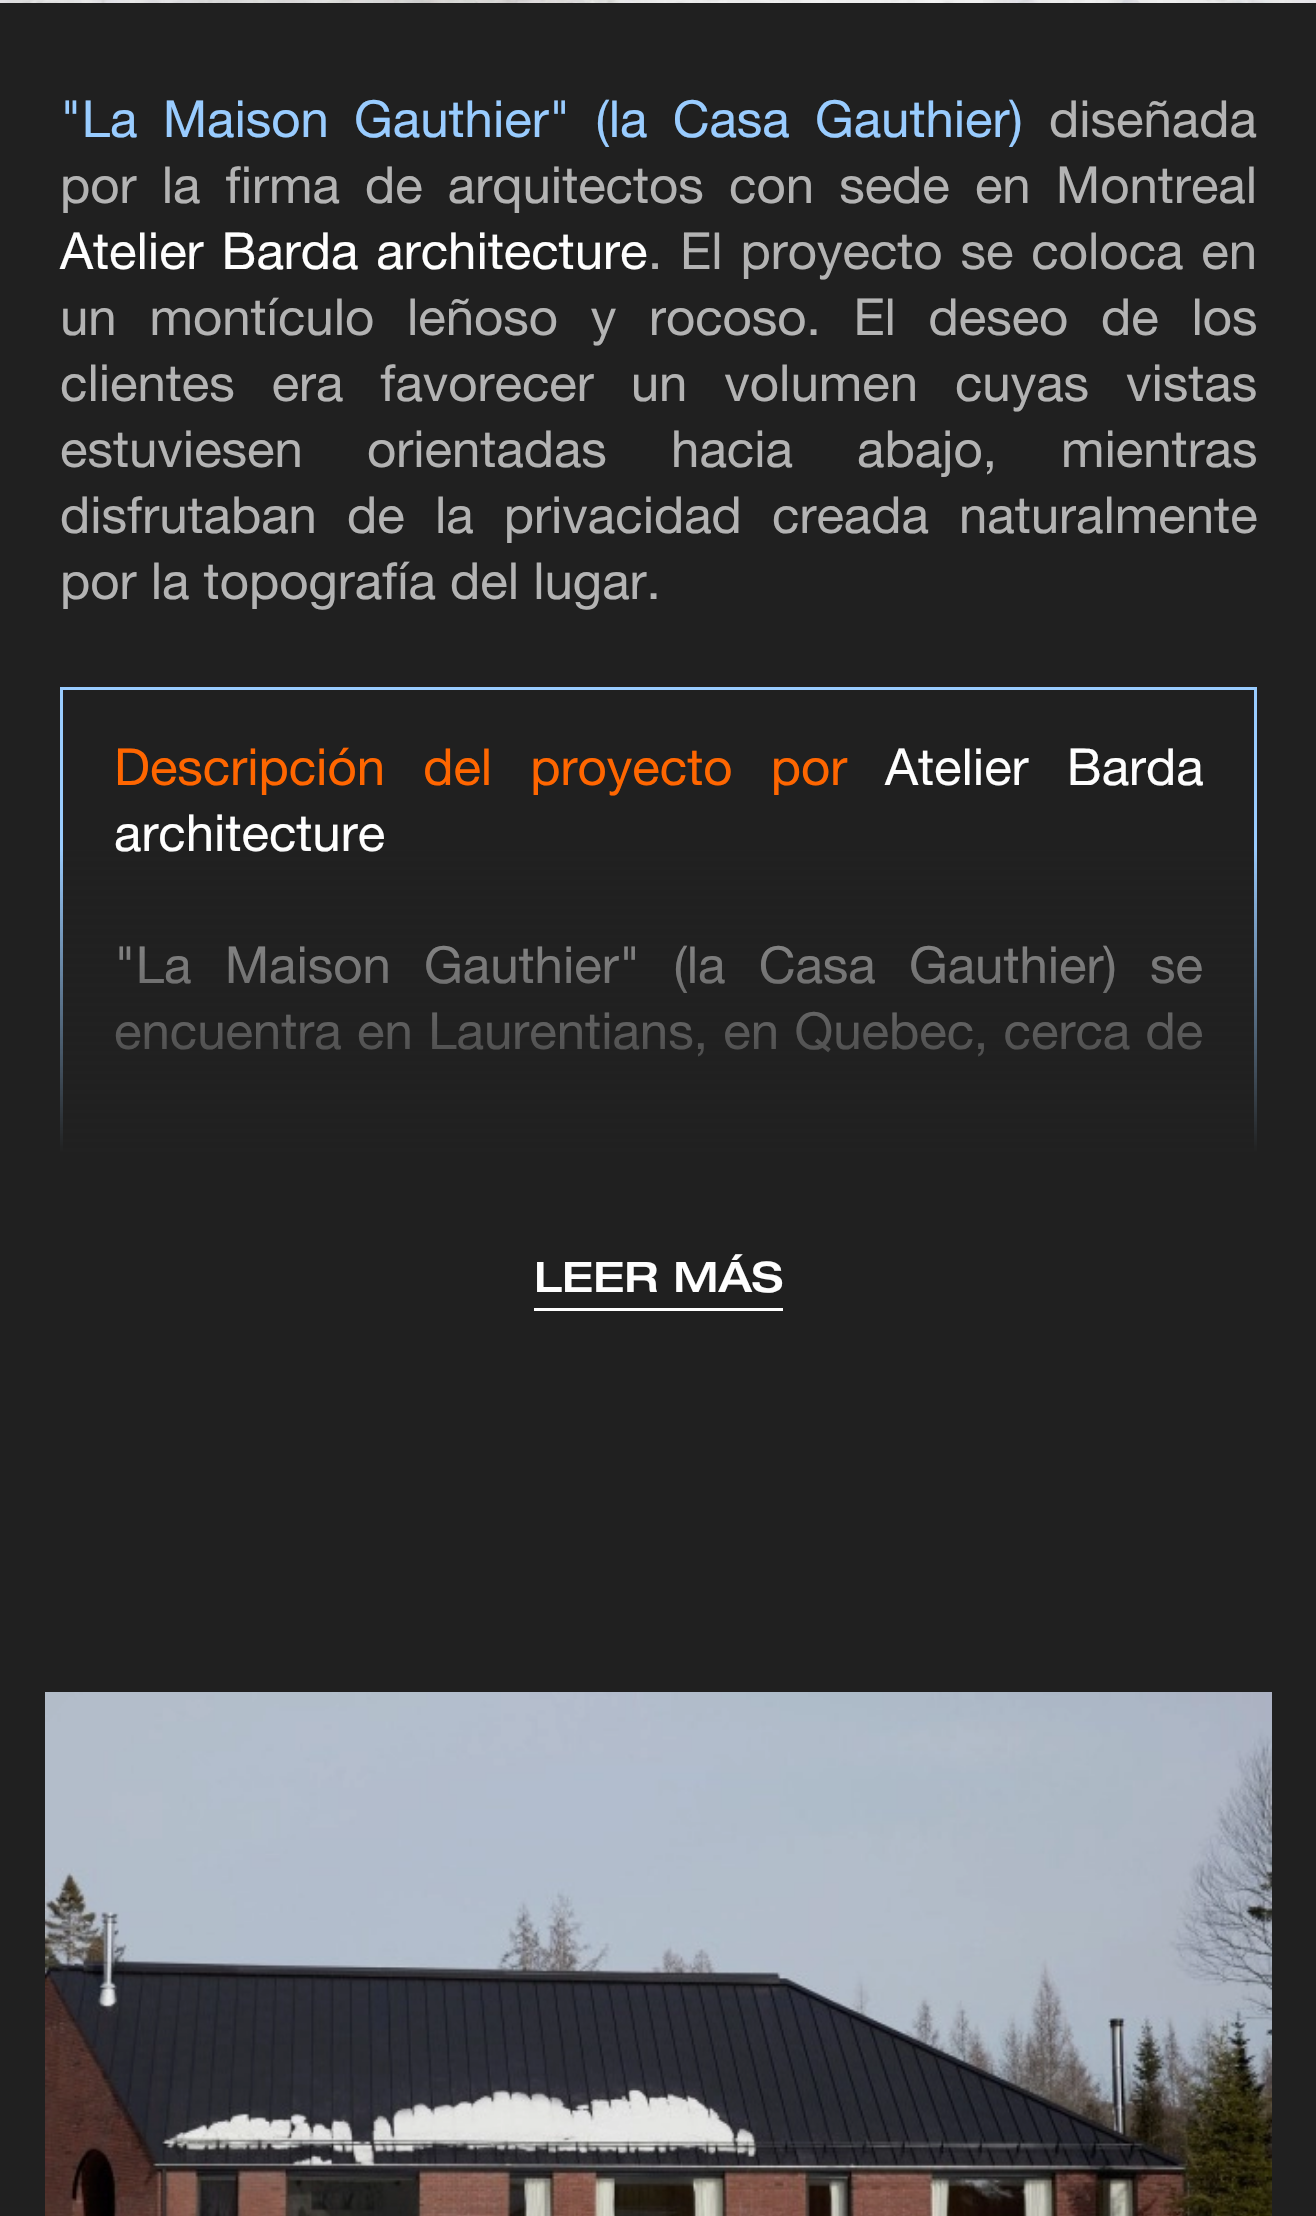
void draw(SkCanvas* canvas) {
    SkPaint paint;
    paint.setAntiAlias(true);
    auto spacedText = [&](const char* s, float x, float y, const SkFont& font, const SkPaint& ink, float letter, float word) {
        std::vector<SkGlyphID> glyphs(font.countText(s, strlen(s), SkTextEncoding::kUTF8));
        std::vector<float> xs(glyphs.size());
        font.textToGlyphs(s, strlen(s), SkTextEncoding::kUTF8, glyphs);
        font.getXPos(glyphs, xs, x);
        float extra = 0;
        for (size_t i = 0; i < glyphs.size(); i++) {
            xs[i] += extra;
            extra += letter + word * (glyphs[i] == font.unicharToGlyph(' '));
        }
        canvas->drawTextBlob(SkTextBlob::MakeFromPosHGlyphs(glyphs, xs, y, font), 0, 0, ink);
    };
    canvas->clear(0xFF202020);
    canvas->drawImageRect(SkImages::DeferredFromEncodedData(SkData::MakeFromFileName("img1.png")), SkRect::MakeXYWH(0, 0, 1316, 3), SkSamplingOptions());
    SkFont font1(fontMgr->matchFamilyStyle("Helvetica Neue", SkFontStyle::Normal()), 51);
    font1.setSubpixel(true);
    paint.setColor(0xFF99CCFF);
    spacedText("\"La Maison Gauthier\" (la Casa Gauthier)", 60, 137, font1, paint, 0, 11);
    paint.setColor(0xFFB3B3B3);
    canvas->drawString("diseñada", 1049, 137, font1, paint);
    spacedText("por la firma de arquitectos con sede en Montreal", 60, 203, font1, paint, 0, 11);
    paint.setColor(0xFFFEFEFE);
    spacedText("Atelier Barda architecture", 60, 269, font1, paint, 0, 3.75f);
    paint.setColor(0xFFB3B3B3);
    spacedText(". El proyecto se coloca en", 648, 269, font1, paint, 0, 3.75f);
    spacedText("un montículo leñoso y rocoso. El deseo de los", 60, 335, font1, paint, 0, 18.5f);
    spacedText("clientes era favorecer un volumen cuyas vistas", 60, 401, font1, paint, 0, 22.75f);
    spacedText("estuviesen orientadas hacia abajo, mientras", 60, 467, font1, paint, 0, 50);
    spacedText("disfrutaban de la privacidad creada naturalmente", 60, 533, font1, paint, 0, 16);
    canvas->drawString("por la topografía del lugar.", 60, 599, font1, paint);
    canvas->save();
    canvas->clipRect(SkRect::MakeXYWH(60, 93, 1197, 1260));
    paint.setStyle(SkPaint::kStroke_Style);
    paint.setStrokeWidth(3);
    paint.setColor(0xFF99CCFF);
    canvas->drawRect(SkRect::MakeXYWH(61.5f, 688.5f, 1194, 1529), paint);
    canvas->restore();
    paint.setStyle(SkPaint::kFill_Style);
    paint.setColor(0xFFFF6600);
    spacedText("Descripción del proyecto por", 114, 785, font1, paint, 0, 24);
    paint.setColor(0xFFFEFEFE);
    spacedText("Atelier Barda", 885, 785, font1, paint, 0, 24);
    canvas->drawString("architecture", 114, 851, font1, paint);
    paint.setColor(0xFFB3B3B3);
    spacedText("\"La Maison Gauthier\" (la Casa Gauthier) se", 114, 983, font1, paint, 0, 19);
    spacedText("encuentra en Laurentians, en Quebec, cerca de", 114, 1049, font1, paint, 0, 1.25f);
    {
        const SkColor colors[] = {0x00202020, 0xFF202020};
        const float stops[] = {0, 0.58f};
        const SkPoint ends[] = {{659, 843}, {659, 1377}};
        paint.setShader(SkGradientShader::MakeLinear(ends, colors, stops, 2, SkTileMode::kClamp));
        paint.setAlpha(255);
    }
    canvas->drawRect(SkRect::MakeXYWH(60, 850, 1197, 503), paint);
    paint.setShader(nullptr);
    paint.setColor(0xFFFFFFFF);
    canvas->drawRect(SkRect::MakeXYWH(534, 1308, 249, 3), paint);
    SkFont font2(fontMgr->matchFamilyStyle("Helvetica Neue", SkFontStyle(500, SkFontStyle::kNormal_Width, SkFontStyle::kUpright_Slant)), 42);
    font2.setSubpixel(true);
    paint.setColor(0xFFFEFEFE);
    canvas->drawString("LEER MÁS", 534, 1292, font2, paint);
    canvas->drawImageRect(SkImages::DeferredFromEncodedData(SkData::MakeFromFileName("img2.png")), SkRect::MakeXYWH(45, 1692, 1227, 524), SkSamplingOptions());
}
